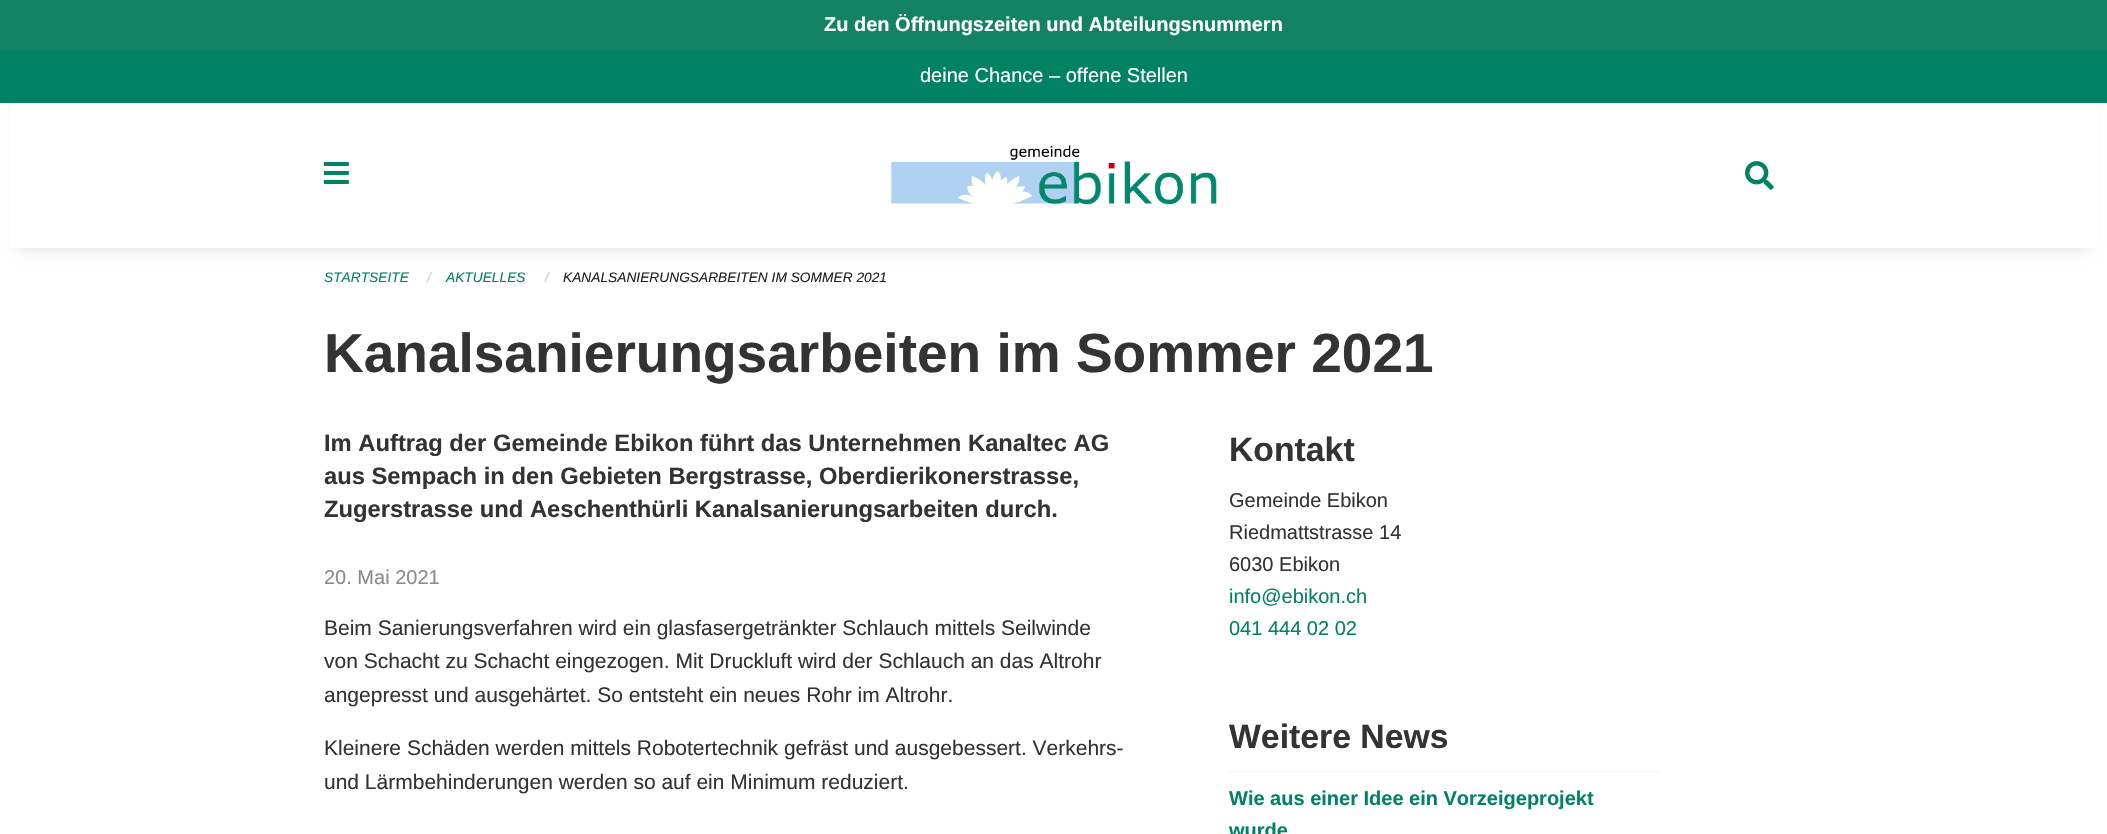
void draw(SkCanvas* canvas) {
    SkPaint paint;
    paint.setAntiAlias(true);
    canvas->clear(0xFFFFFFFF);
    paint.setColor(0xFF128263);
    canvas->drawRect(SkRect::MakeXYWH(0, 0, 2107, 50), paint);
    SkFont font1(fontMgr->matchFamilyStyle("Liberation Sans", SkFontStyle::Bold()), 20);
    font1.setSubpixel(true);
    paint.setColor(0xFFFFFFFF);
    canvas->drawString("Zu den Öffnungszeiten und Abteilungsnummern", 824, 31, font1, paint);
    paint.setColor(0x26000000);
    paint.setMaskFilter(SkMaskFilter::MakeBlur(kNormal_SkBlurStyle, 6));
    canvas->drawRect(SkRect::MakeXYWH(19, 88, 2070, 160), paint);
    paint.setMaskFilter(nullptr);
    paint.setColor(0xFFFFFFFF);
    canvas->drawRect(SkRect::MakeXYWH(10, 103, 2088, 145), paint);
    paint.setColor(0xFF008263);
    canvas->drawRect(SkRect::MakeXYWH(0, 50, 2107, 53), paint);
    SkFont font2(fontMgr->matchFamilyStyle("Liberation Sans", SkFontStyle::Normal()), 20);
    font2.setSubpixel(true);
    paint.setColor(0xFFFFFFFF);
    canvas->drawString("deine Chance – offene Stellen", 920, 82, font2, paint);
    canvas->drawImageRect(SkImages::DeferredFromEncodedData(SkData::MakeFromFileName("img1.png")), SkRect::MakeXYWH(323, 161, 26, 23), SkSamplingOptions());
    canvas->drawImageRect(SkImages::DeferredFromEncodedData(SkData::MakeFromFileName("img2.png")), SkRect::MakeXYWH(891, 145, 326, 60), SkSamplingOptions());
    canvas->drawImageRect(SkImages::DeferredFromEncodedData(SkData::MakeFromFileName("img3.png")), SkRect::MakeXYWH(1745, 161, 29, 29), SkSamplingOptions());
    SkFont font3(fontMgr->matchFamilyStyle("Liberation Sans", SkFontStyle::Italic()), 13.75f);
    font3.setSubpixel(true);
    paint.setColor(0xFF008263);
    canvas->drawString("STARTSEITE", 324, 282, font3, paint);
    paint.setColor(0xFFCACACA);
    canvas->drawString("/", 427, 282, font3, paint);
    paint.setColor(0xFF008263);
    canvas->drawString("AKTUELLES", 446, 282, font3, paint);
    paint.setColor(0xFFCACACA);
    canvas->drawString("/", 545, 282, font3, paint);
    paint.setColor(0xFF222222);
    canvas->drawString("KANALSANIERUNGSARBEITEN IM SOMMER 2021", 563, 282, font3, paint);
    SkFont font4(fontMgr->matchFamilyStyle("Liberation Sans", SkFontStyle::Bold()), 55);
    font4.setSubpixel(true);
    paint.setColor(0xFF333333);
    canvas->drawString("Kanalsanierungsarbeiten im Sommer 2021", 324, 372, font4, paint);
    SkFont font5(fontMgr->matchFamilyStyle("Liberation Sans", SkFontStyle::Bold()), 23.75f);
    font5.setSubpixel(true);
    canvas->drawString("Im Auftrag der Gemeinde Ebikon führt das Unternehmen Kanaltec AG", 324, 451, font5, paint);
    canvas->drawString("aus Sempach in den Gebieten Bergstrasse, Oberdierikonerstrasse,", 324, 484, font5, paint);
    canvas->drawString("Zugerstrasse und Aeschenthürli Kanalsanierungsarbeiten durch.", 324, 517, font5, paint);
    paint.setColor(0xFF8A8A8A);
    canvas->drawString("20. Mai 2021", 324, 584, font2, paint);
    SkFont font6(fontMgr->matchFamilyStyle("Liberation Sans", SkFontStyle::Normal()), 21);
    font6.setSubpixel(true);
    paint.setColor(0xFF333333);
    canvas->drawString("Beim Sanierungsverfahren wird ein glasfasergetränkter Schlauch mittels Seilwinde", 324, 635, font6, paint);
    canvas->drawString("von Schacht zu Schacht eingezogen. Mit Druckluft wird der Schlauch an das Altrohr", 324, 668, font6, paint);
    canvas->drawString("angepresst und ausgehärtet. So entsteht ein neues Rohr im Altrohr.", 324, 702, font6, paint);
    canvas->drawString("Kleinere Schäden werden mittels Robotertechnik gefräst und ausgebessert. Verkehrs-", 324, 755, font6, paint);
    canvas->drawString("und Lärmbehinderungen werden so auf ein Minimum reduziert.", 324, 789, font6, paint);
    SkFont font7(fontMgr->matchFamilyStyle("Liberation Sans", SkFontStyle::Bold()), 33.75f);
    font7.setSubpixel(true);
    canvas->drawString("Kontakt", 1229, 461, font7, paint);
    canvas->drawString("Gemeinde Ebikon", 1229, 507, font2, paint);
    canvas->drawString("Riedmattstrasse 14", 1229, 539, font2, paint);
    canvas->drawString("6030 Ebikon", 1229, 571, font2, paint);
    paint.setColor(0xFF008263);
    canvas->drawString("info@ebikon.ch", 1229, 603, font2, paint);
    canvas->drawString("041 444 02 02", 1229, 635, font2, paint);
    paint.setColor(0xFF333333);
    canvas->drawString("Weitere News", 1229, 748, font7, paint);
    paint.setColor(0xFFF5F5F5);
    canvas->drawRect(SkRect::MakeXYWH(1229, 771, 430, 1), paint);
    paint.setColor(0xFF008263);
    canvas->drawString("Wie aus einer Idee ein Vorzeigeprojekt", 1229, 805, font1, paint);
    canvas->drawString("wurde", 1229, 837, font1, paint);
}
